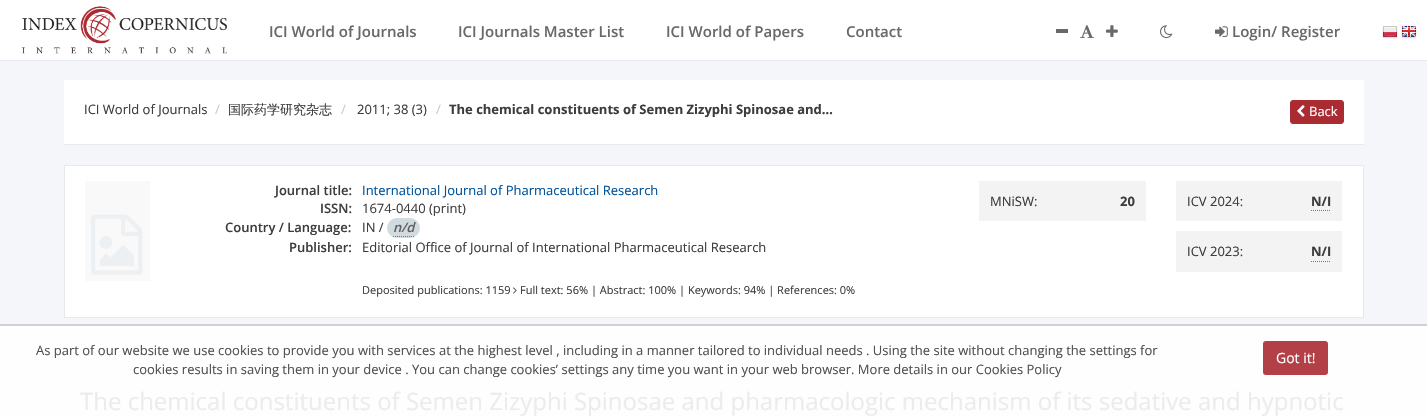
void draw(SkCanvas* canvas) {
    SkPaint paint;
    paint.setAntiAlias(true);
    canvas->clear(0xFFF4F6FA);
    paint.setColor(0xFFFFFFFF);
    canvas->drawRect(SkRect::MakeXYWH(0, 0, 1427, 60), paint);
    paint.setColor(0xFFE7EAEC);
    canvas->drawRect(SkRect::MakeXYWH(0, 60, 1427, 1), paint);
    canvas->drawImageRect(SkImages::DeferredFromEncodedData(SkData::MakeFromFileName("img1.png")), SkRect::MakeXYWH(22, 6, 205, 48), SkSamplingOptions());
    SkFont font1(fontMgr->matchFamilyStyle("Open Sans", SkFontStyle(600, SkFontStyle::kNormal_Width, SkFontStyle::kUpright_Slant)), 15);
    font1.setSubpixel(true);
    paint.setColor(0xFF676A6C);
    canvas->drawString("ICI World of Journals", 269, 37, font1, paint);
    canvas->drawString("ICI Journals Master List", 458, 37, font1, paint);
    canvas->drawString("ICI World of Papers", 666, 37, font1, paint);
    canvas->drawString("Contact", 846, 37, font1, paint);
    canvas->drawRect(SkRect::MakeXYWH(1056, 29, 12, 4), paint);
    canvas->drawImageRect(SkImages::DeferredFromEncodedData(SkData::MakeFromFileName("img2.png")), SkRect::MakeXYWH(1080, 25, 14, 14), SkSamplingOptions());
    canvas->drawImageRect(SkImages::DeferredFromEncodedData(SkData::MakeFromFileName("img3.png")), SkRect::MakeXYWH(1106, 25, 12, 12), SkSamplingOptions());
    canvas->drawImageRect(SkImages::DeferredFromEncodedData(SkData::MakeFromFileName("img4.png")), SkRect::MakeXYWH(1160, 25, 13, 14), SkSamplingOptions());
    canvas->drawImageRect(SkImages::DeferredFromEncodedData(SkData::MakeFromFileName("img5.png")), SkRect::MakeXYWH(1215, 26, 13, 11), SkSamplingOptions());
    canvas->drawString("Login/ Register", 1232, 37, font1, paint);
    canvas->drawImageRect(SkImages::DeferredFromEncodedData(SkData::MakeFromFileName("img6.png")), SkRect::MakeXYWH(1382, 26, 16, 13), SkSamplingOptions());
    canvas->drawImageRect(SkImages::DeferredFromEncodedData(SkData::MakeFromFileName("img7.png")), SkRect::MakeXYWH(1401, 26, 16, 13), SkSamplingOptions());
    paint.setColor(0xFFFEFEFF);
    canvas->drawRect(SkRect::MakeXYWH(0, 326, 1427, 90), paint);
    paint.setColor(0xFFFFFFFF);
    canvas->drawRect(SkRect::MakeXYWH(64, 80, 1300, 64), paint);
    paint.setColor(0xFFE7EAEC);
    canvas->drawRect(SkRect::MakeXYWH(64, 144, 1300, 1), paint);
    SkFont font2(fontMgr->matchFamilyStyle("Open Sans", SkFontStyle::Normal()), 13);
    font2.setSubpixel(true);
    paint.setColor(0xFF3D3D3D);
    canvas->drawString("ICI World of Journals", 84, 114, font2, paint);
    paint.setColor(0xFFCCCCCC);
    canvas->drawString("/", 215, 114, font2, paint);
    SkFont font3(fontMgr->matchFamilyStyle("WenQuanYi Zen Hei", SkFontStyle(500, SkFontStyle::kNormal_Width, SkFontStyle::kUpright_Slant)), 13);
    font3.setSubpixel(true);
    paint.setColor(0xFF3D3D3D);
    canvas->drawString("国际药学研究杂志", 228, 114, font3, paint);
    paint.setColor(0xFFCCCCCC);
    canvas->drawString("/", 341, 114, font2, paint);
    paint.setColor(0xFF3D3D3D);
    canvas->drawString("2011; 38 (3)", 357, 114, font2, paint);
    paint.setColor(0xFFCCCCCC);
    canvas->drawString("/", 436, 114, font2, paint);
    SkFont font4(fontMgr->matchFamilyStyle("Open Sans", SkFontStyle::Bold()), 13);
    font4.setSubpixel(true);
    paint.setColor(0xFF3D3D3D);
    canvas->drawString("The chemical constituents of Semen Zizyphi Spinosae and…", 449, 114, font4, paint);
    paint.setColor(0xFFAA2B31);
    canvas->drawRoundRect(SkRect::MakeXYWH(1290.5f, 100.5f, 53, 23), 2.5f, 2.5f, paint);
    paint.setStyle(SkPaint::kStroke_Style);
    paint.setStrokeWidth(1);
    canvas->drawRoundRect(SkRect::MakeXYWH(1290.5f, 100.5f, 53, 23), 2.5f, 2.5f, paint);
    canvas->drawImageRect(SkImages::DeferredFromEncodedData(SkData::MakeFromFileName("img8.png")), SkRect::MakeXYWH(1297, 105, 8, 12), SkSamplingOptions());
    paint.setStyle(SkPaint::kFill_Style);
    paint.setColor(0xFFFFFFFF);
    canvas->drawString("Back", 1309, 116, font2, paint);
    canvas->drawRect(SkRect::MakeXYWH(64.5f, 165.5f, 1299, 152), paint);
    paint.setStyle(SkPaint::kStroke_Style);
    paint.setColor(0xFFE7EAEC);
    canvas->drawRect(SkRect::MakeXYWH(64.5f, 165.5f, 1299, 152), paint);
    paint.setStyle(SkPaint::kFill_Style);
    paint.setColor(0xFFF9F9F9);
    canvas->drawRect(SkRect::MakeXYWH(85, 181, 65, 100), paint);
    canvas->drawImageRect(SkImages::DeferredFromEncodedData(SkData::MakeFromFileName("img9.png")), SkRect::MakeXYWH(91, 214, 52, 61), SkSamplingOptions());
    SkFont font5(fontMgr->matchFamilyStyle("Open Sans", SkFontStyle(600, SkFontStyle::kNormal_Width, SkFontStyle::kUpright_Slant)), 13);
    font5.setSubpixel(true);
    paint.setColor(0xFF3D3D3D);
    canvas->drawString("Journal title:", 275, 195, font5, paint);
    paint.setColor(0xFF00539B);
    canvas->drawString("International Journal of Pharmaceutical Research", 362, 195, font2, paint);
    paint.setColor(0xFF3D3D3D);
    canvas->drawString("ISSN:", 320, 213, font5, paint);
    canvas->drawString("1674-0440 (print)", 362, 213, font2, paint);
    canvas->drawString("Country / Language:", 225, 232, font5, paint);
    canvas->drawString("IN /", 362, 232, font2, paint);
    paint.setColor(0xFFD1DADE);
    canvas->drawRoundRect(SkRect::MakeXYWH(387, 218, 33, 20), 10, 10, paint);
    SkFont font6(fontMgr->matchFamilyStyle("Open Sans", SkFontStyle(600, SkFontStyle::kNormal_Width, SkFontStyle::kItalic_Slant)), 13);
    font6.setSubpixel(true);
    paint.setColor(0xFF5E5E5E);
    canvas->drawString("n/d", 393, 232, font6, paint);
    paint.setStyle(SkPaint::kStroke_Style);
    paint.setColor(0xFF777777);
    paint.setPathEffect(SkDashPathEffect::Make({{1, 1}}, 0));
    canvas->drawPath(SkPathBuilder().moveTo(393, 236.5f).lineTo(414, 236.5f).detach(), paint);
    paint.setPathEffect(nullptr);
    paint.setStyle(SkPaint::kFill_Style);
    paint.setColor(0xFF3D3D3D);
    canvas->drawString("Publisher:", 289, 252, font5, paint);
    canvas->drawString("Editorial Office of Journal of International Pharmaceutical Research", 362, 252, font2, paint);
    paint.setColor(0xFFF3F3F4);
    canvas->drawRect(SkRect::MakeXYWH(979, 181, 167, 40), paint);
    paint.setColor(0xFF3D3D3D);
    canvas->drawString("MNiSW:", 990, 206, font2, paint);
    canvas->drawString("20", 1120, 206, font4, paint);
    paint.setColor(0xFFF3F3F4);
    canvas->drawRect(SkRect::MakeXYWH(1176, 181, 166, 40), paint);
    paint.setColor(0xFF3D3D3D);
    canvas->drawString("ICV 2024:", 1187, 206, font2, paint);
    paint.setStyle(SkPaint::kStroke_Style);
    paint.setColor(0xFF777777);
    paint.setPathEffect(SkDashPathEffect::Make({{1, 1}}, 0));
    canvas->drawPath(SkPathBuilder().moveTo(1311, 210.5f).lineTo(1331, 210.5f).detach(), paint);
    paint.setPathEffect(nullptr);
    paint.setStyle(SkPaint::kFill_Style);
    paint.setColor(0xFF3D3D3D);
    canvas->drawString("N/I", 1311, 206, font4, paint);
    paint.setColor(0xFFF3F3F4);
    canvas->drawRect(SkRect::MakeXYWH(1176, 231, 166, 41), paint);
    paint.setColor(0xFF3D3D3D);
    canvas->drawString("ICV 2023:", 1187, 256, font2, paint);
    paint.setStyle(SkPaint::kStroke_Style);
    paint.setColor(0xFF777777);
    paint.setPathEffect(SkDashPathEffect::Make({{1, 1}}, 0));
    canvas->drawPath(SkPathBuilder().moveTo(1311, 261.5f).lineTo(1331, 261.5f).detach(), paint);
    paint.setPathEffect(nullptr);
    paint.setStyle(SkPaint::kFill_Style);
    paint.setColor(0xFF3D3D3D);
    canvas->drawString("N/I", 1311, 256, font4, paint);
    SkFont font7(fontMgr->matchFamilyStyle("Open Sans", SkFontStyle::Normal()), 11);
    font7.setSubpixel(true);
    canvas->drawString("Deposited publications: 1159", 362, 294, font7, paint);
    canvas->drawImageRect(SkImages::DeferredFromEncodedData(SkData::MakeFromFileName("img10.png")), SkRect::MakeXYWH(513, 287, 4, 7), SkSamplingOptions());
    canvas->drawString("Full text: 56% | Abstract: 100% | Keywords: 94% | References: 0%", 520, 294, font7, paint);
    SkFont font8(fontMgr->matchFamilyStyle("Open Sans", SkFontStyle::Normal()), 24);
    font8.setSubpixel(true);
    paint.setColor(0xFFECECEC);
    canvas->drawString("The chemical constituents of Semen Zizyphi Spinosae and pharmacologic mechanism of its sedative and hypnotic", 80, 410, font8, paint);
    paint.setColor(0xFFD0D0D1);
    canvas->drawRect(SkRect::MakeXYWH(0, 324, 1427, 2), paint);
    paint.setColor(0xFF4F5050);
    canvas->drawString("As part of our website we use cookies to provide you with services at the highest level , including in a manner tailored to individual needs . Using the site without changing the settings for", 36, 355, font2, paint);
    canvas->drawString("cookies results in saving them in your device . You can change cookies’ settings any time you want in your web browser. More details in our Cookies Policy", 133, 374, font2, paint);
    paint.setColor(0xFFB24046);
    canvas->drawRoundRect(SkRect::MakeXYWH(1263, 341, 65, 34), 3, 3, paint);
    SkFont font9(fontMgr->matchFamilyStyle("Open Sans", SkFontStyle::Normal()), 14);
    font9.setSubpixel(true);
    paint.setColor(0xFFFFFFFF);
    canvas->drawString("Got it!", 1276, 363, font9, paint);
}
